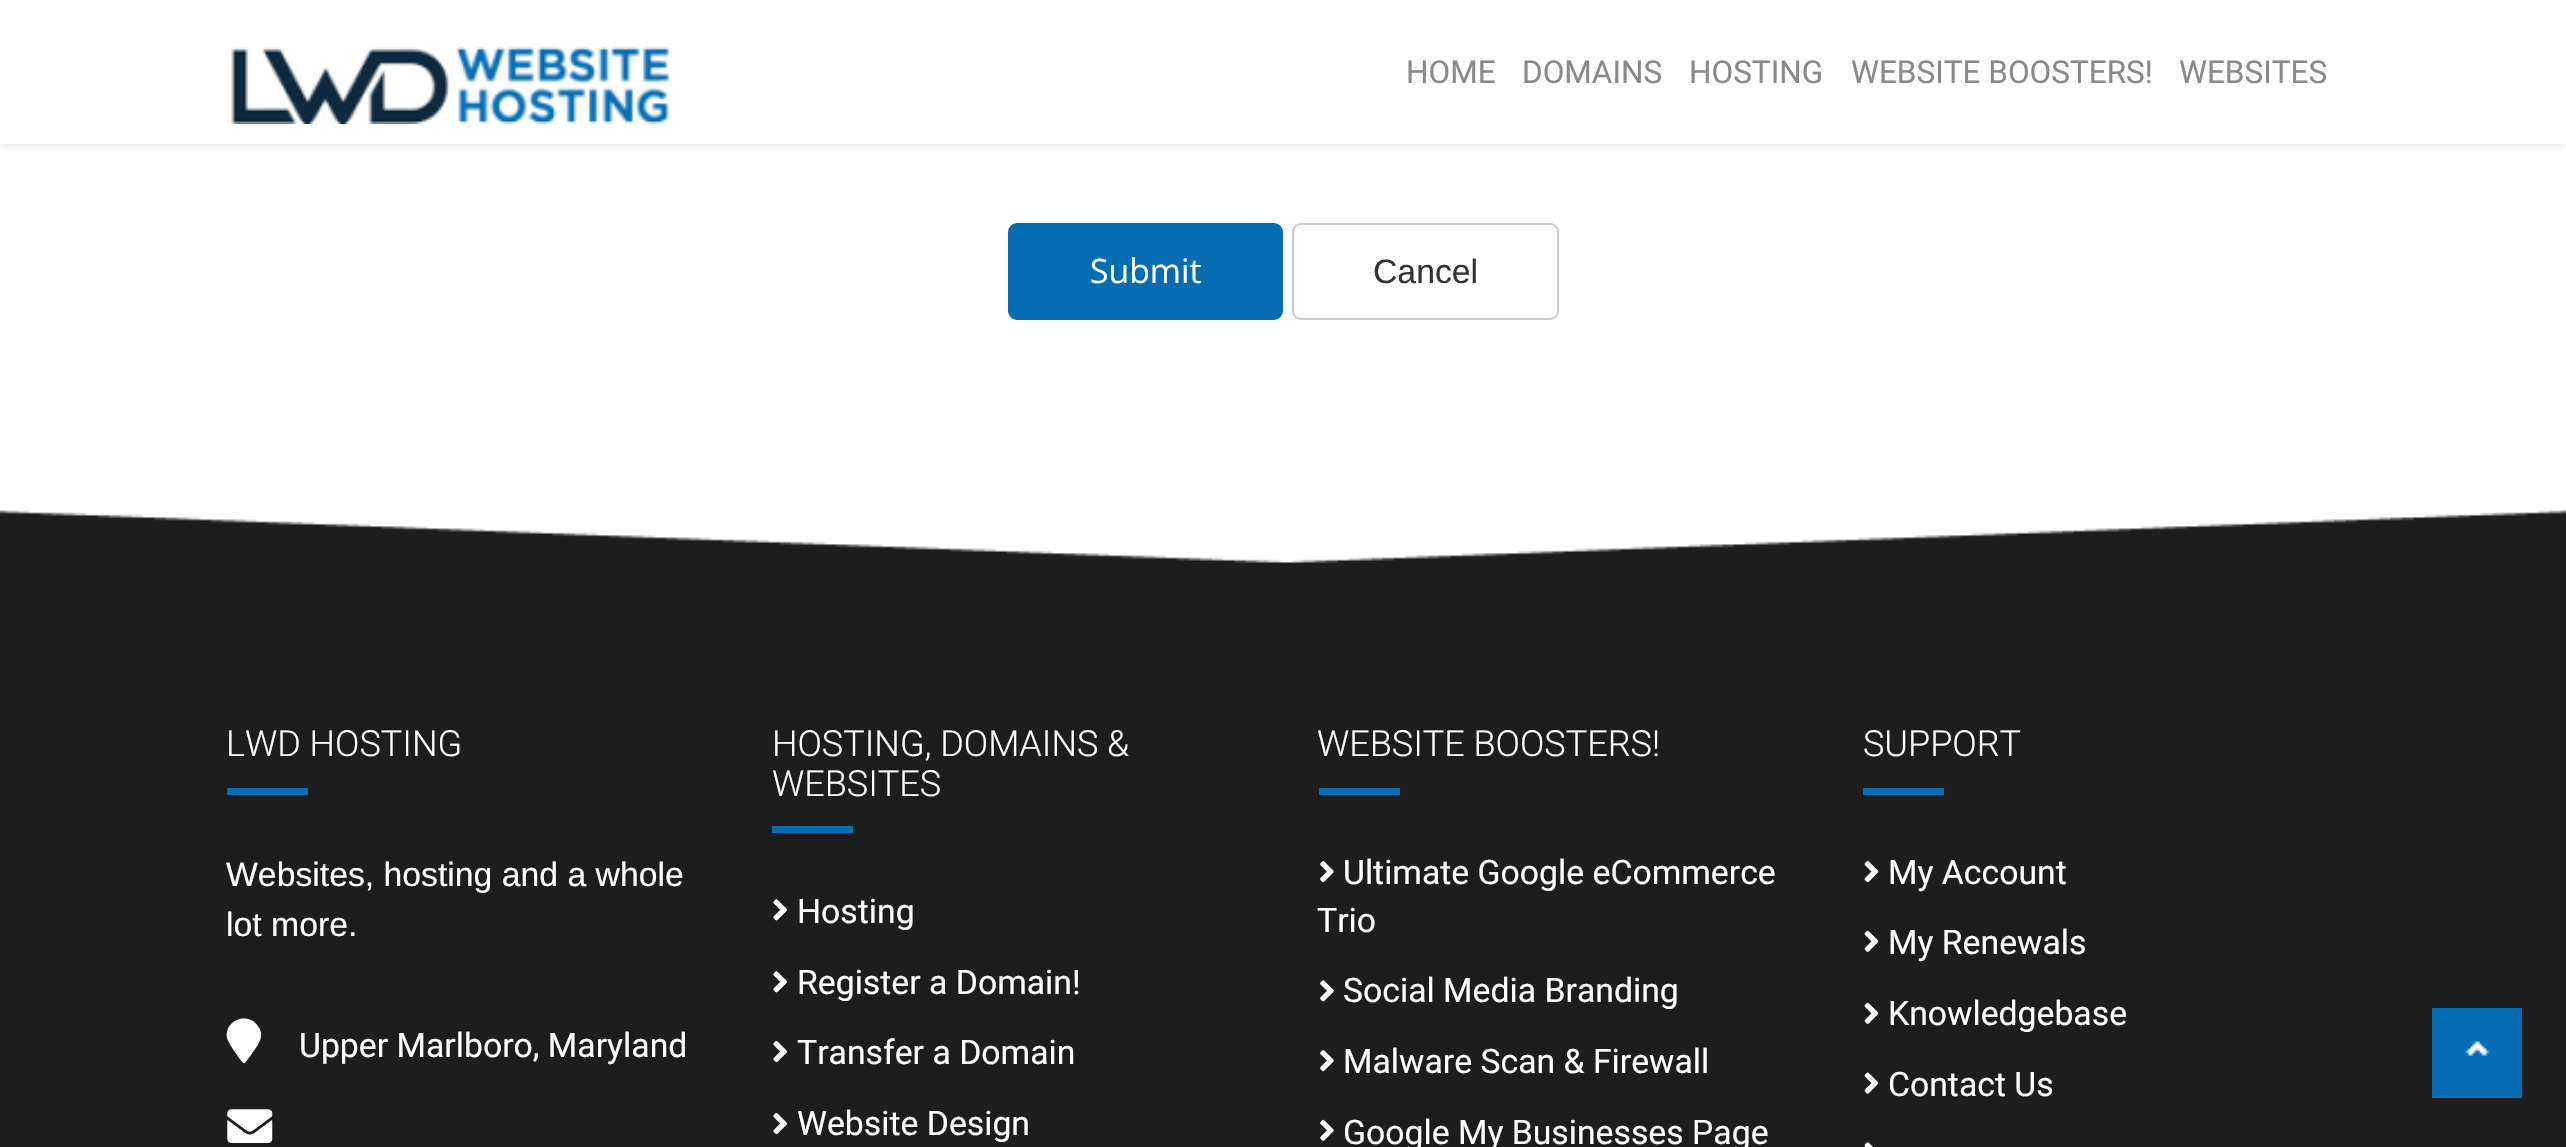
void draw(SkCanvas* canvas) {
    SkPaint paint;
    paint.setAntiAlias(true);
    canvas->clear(0xFFFFFFFF);
    canvas->save();
    canvas->clipRect(SkRect::MakeXYWH(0, 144, 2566, 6));
    paint.setColor(0x1A000000);
    paint.setMaskFilter(SkMaskFilter::MakeBlur(kNormal_SkBlurStyle, 4.5f));
    canvas->drawRect(SkRect::MakeXYWH(0, 2, 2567, 144), paint);
    paint.setMaskFilter(nullptr);
    canvas->restore();
    canvas->drawImageRect(SkImages::DeferredFromEncodedData(SkData::MakeFromFileName("img1.png")), SkRect::MakeXYWH(231, 46, 440, 78), SkSamplingOptions());
    SkFont font1(fontMgr->matchFamilyStyle("Roboto", SkFontStyle::Normal()), 31.5f);
    font1.setSubpixel(true);
    paint.setColor(0xFF8A8989);
    canvas->drawString("HOME", 1406, 83, font1, paint);
    canvas->drawString("DOMAINS", 1522, 83, font1, paint);
    canvas->drawString("HOSTING", 1689, 83, font1, paint);
    canvas->drawString("WEBSITE BOOSTERS!", 1851, 83, font1, paint);
    canvas->drawString("WEBSITES", 2179, 83, font1, paint);
    paint.setColor(0xFF066DB3);
    canvas->drawRoundRect(SkRect::MakeXYWH(1009, 224, 273, 95), 8, 8, paint);
    paint.setStyle(SkPaint::kStroke_Style);
    paint.setStrokeWidth(2);
    canvas->drawRoundRect(SkRect::MakeXYWH(1009, 224, 273, 95), 8, 8, paint);
    SkFont font2(fontMgr->matchFamilyStyle("Open Sans", SkFontStyle::Normal()), 33.75f);
    font2.setSubpixel(true);
    paint.setStyle(SkPaint::kFill_Style);
    paint.setColor(0xFFFFFFFF);
    canvas->drawString("Submit", 1090, 283, font2, paint);
    paint.setStyle(SkPaint::kStroke_Style);
    paint.setColor(0xFFCCCCCC);
    canvas->drawRoundRect(SkRect::MakeXYWH(1293, 224, 265, 95), 8, 8, paint);
    SkFont font3(fontMgr->matchFamilyStyle("Liberation Sans", SkFontStyle::Normal()), 33.75f);
    font3.setSubpixel(true);
    paint.setStyle(SkPaint::kFill_Style);
    paint.setColor(0xFF333333);
    canvas->drawString("Cancel", 1373, 283, font3, paint);
    paint.setColor(0xFF1D1D1D);
    canvas->drawRect(SkRect::MakeXYWH(0, 510, 2566, 637), paint);
    canvas->drawImageRect(SkImages::DeferredFromEncodedData(SkData::MakeFromFileName("img2.png")), SkRect::MakeXYWH(0, 477, 2566, 86), SkSamplingOptions());
    SkFont font4(fontMgr->matchFamilyStyle("Roboto", SkFontStyle(300, SkFontStyle::kNormal_Width, SkFontStyle::kUpright_Slant)), 36);
    font4.setSubpixel(true);
    paint.setColor(0xFFFFFFFF);
    canvas->drawString("LWD HOSTING", 226, 756, font4, paint);
    paint.setColor(0xFF066DB3);
    canvas->drawRect(SkRect::MakeXYWH(227, 788, 81, 7), paint);
    paint.setColor(0xFFFFFFFF);
    canvas->drawString("Websites, hosting and a whole", 226, 886, font3, paint);
    canvas->drawString("lot more.", 226, 936, font3, paint);
    canvas->drawPath(SkPathBuilder().moveTo(242, 1062).cubicTo(238, 1056, 229, 1045, 227, 1038).cubicTo(224, 1020, 248, 1011, 258, 1026).cubicTo(266, 1037, 257, 1046, 251, 1055).lineTo(245, 1063).cubicTo(244, 1063, 243, 1063, 242, 1062).close().detach(), paint);
    SkFont font5(fontMgr->matchFamilyStyle("Roboto", SkFontStyle::Normal()), 33.75f);
    font5.setSubpixel(true);
    canvas->drawString("Upper Marlboro, Maryland", 299, 1057, font5, paint);
    canvas->drawImageRect(SkImages::DeferredFromEncodedData(SkData::MakeFromFileName("img3.png")), SkRect::MakeXYWH(227, 1109, 46, 34), SkSamplingOptions());
    canvas->drawString("HOSTING, DOMAINS &", 772, 756, font4, paint);
    canvas->drawString("WEBSITES", 772, 796, font4, paint);
    paint.setColor(0xFF066DB3);
    canvas->drawRect(SkRect::MakeXYWH(772, 826, 81, 7), paint);
    canvas->drawImageRect(SkImages::DeferredFromEncodedData(SkData::MakeFromFileName("img4.png")), SkRect::MakeXYWH(773, 899, 14, 22), SkSamplingOptions());
    paint.setColor(0xFFFFFFFF);
    canvas->drawString("Hosting", 797, 923, font5, paint);
    canvas->drawImageRect(SkImages::DeferredFromEncodedData(SkData::MakeFromFileName("img4.png")), SkRect::MakeXYWH(773, 971, 14, 22), SkSamplingOptions());
    canvas->drawString("Register a Domain!", 797, 994, font5, paint);
    canvas->drawImageRect(SkImages::DeferredFromEncodedData(SkData::MakeFromFileName("img5.png")), SkRect::MakeXYWH(773, 1041, 14, 22), SkSamplingOptions());
    canvas->drawString("Transfer a Domain", 797, 1064, font5, paint);
    canvas->drawImageRect(SkImages::DeferredFromEncodedData(SkData::MakeFromFileName("img5.png")), SkRect::MakeXYWH(773, 1113, 14, 22), SkSamplingOptions());
    canvas->drawString("Website Design", 797, 1135, font5, paint);
    canvas->drawString("WEBSITE BOOSTERS!", 1317, 756, font4, paint);
    paint.setColor(0xFF066DB3);
    canvas->drawRect(SkRect::MakeXYWH(1319, 788, 81, 7), paint);
    canvas->drawImageRect(SkImages::DeferredFromEncodedData(SkData::MakeFromFileName("img6.png")), SkRect::MakeXYWH(1320, 861, 14, 22), SkSamplingOptions());
    paint.setColor(0xFFFFFFFF);
    canvas->drawString("Ultimate Google eCommerce", 1343, 884, font5, paint);
    canvas->drawString("Trio", 1317, 932, font5, paint);
    canvas->drawImageRect(SkImages::DeferredFromEncodedData(SkData::MakeFromFileName("img7.png")), SkRect::MakeXYWH(1320, 980, 14, 22), SkSamplingOptions());
    canvas->drawString("Social Media Branding", 1343, 1002, font5, paint);
    canvas->drawImageRect(SkImages::DeferredFromEncodedData(SkData::MakeFromFileName("img6.png")), SkRect::MakeXYWH(1320, 1050, 14, 22), SkSamplingOptions());
    canvas->drawString("Malware Scan & Firewall", 1343, 1073, font5, paint);
    canvas->drawImageRect(SkImages::DeferredFromEncodedData(SkData::MakeFromFileName("img8.png")), SkRect::MakeXYWH(1320, 1119, 14, 22), SkSamplingOptions());
    canvas->drawString("Google My Businesses Page", 1343, 1144, font5, paint);
    canvas->drawString("SUPPORT", 1863, 756, font4, paint);
    paint.setColor(0xFF066DB3);
    canvas->drawRect(SkRect::MakeXYWH(1863, 788, 81, 7), paint);
    canvas->drawImageRect(SkImages::DeferredFromEncodedData(SkData::MakeFromFileName("img9.png")), SkRect::MakeXYWH(1864, 861, 15, 22), SkSamplingOptions());
    paint.setColor(0xFFFFFFFF);
    canvas->drawString("My Account", 1888, 884, font5, paint);
    canvas->drawImageRect(SkImages::DeferredFromEncodedData(SkData::MakeFromFileName("img10.png")), SkRect::MakeXYWH(1864, 930, 15, 22), SkSamplingOptions());
    canvas->drawString("My Renewals", 1888, 954, font5, paint);
    canvas->drawImageRect(SkImages::DeferredFromEncodedData(SkData::MakeFromFileName("img10.png")), SkRect::MakeXYWH(1864, 1002, 15, 22), SkSamplingOptions());
    canvas->drawString("Knowledgebase", 1888, 1025, font5, paint);
    canvas->drawImageRect(SkImages::DeferredFromEncodedData(SkData::MakeFromFileName("img11.png")), SkRect::MakeXYWH(1864, 1072, 15, 22), SkSamplingOptions());
    canvas->drawString("Contact Us", 1888, 1096, font5, paint);
    canvas->drawImageRect(SkImages::DeferredFromEncodedData(SkData::MakeFromFileName("img12.png")), SkRect::MakeXYWH(1864, 1142, 9, 5), SkSamplingOptions());
    paint.setColor(0xFF066DB3);
    canvas->drawRect(SkRect::MakeXYWH(2432, 1008, 90, 90), paint);
    canvas->drawImageRect(SkImages::DeferredFromEncodedData(SkData::MakeFromFileName("img13.png")), SkRect::MakeXYWH(2465, 1041, 25, 15), SkSamplingOptions());
}
